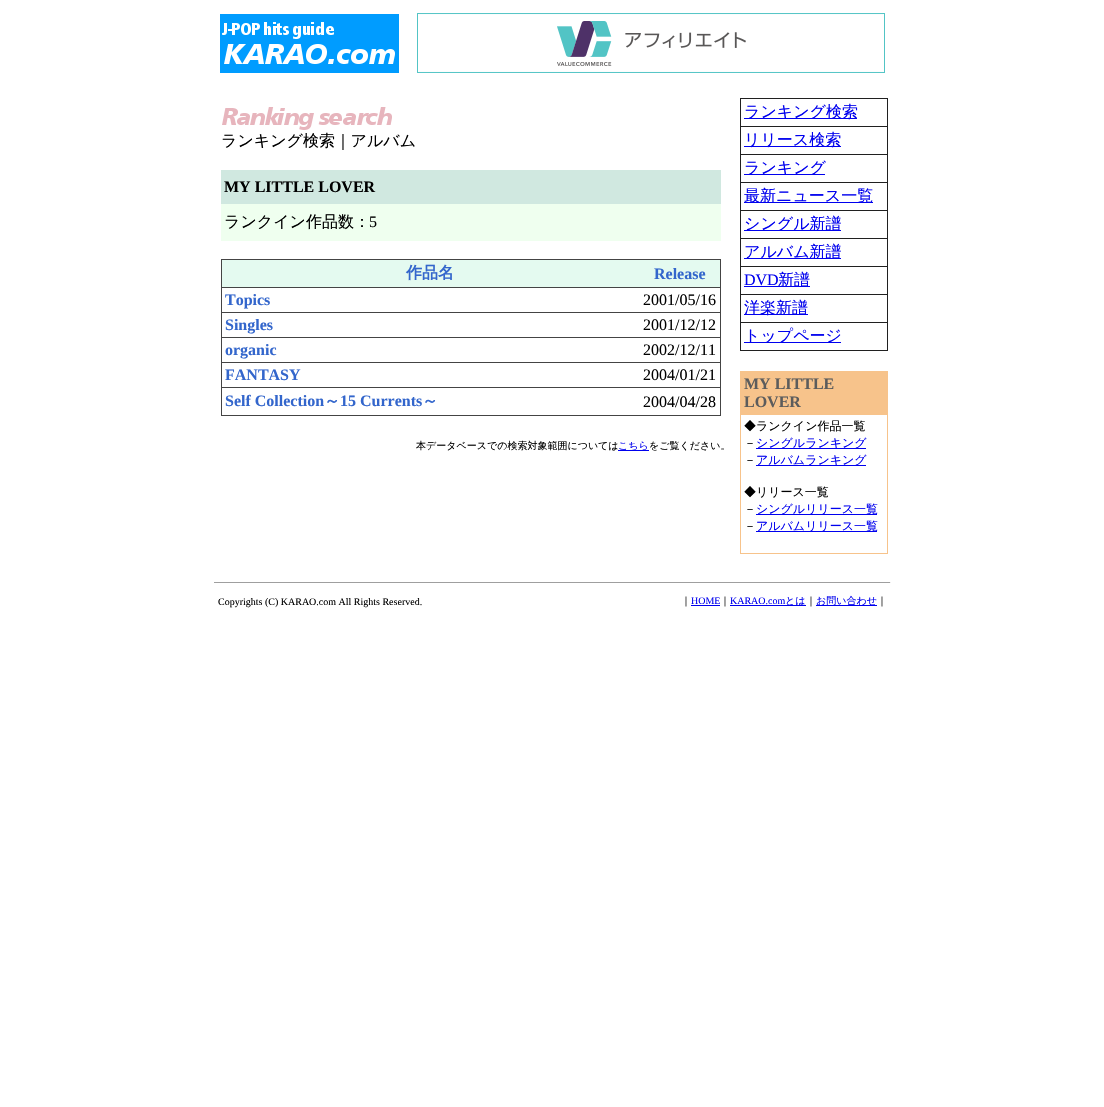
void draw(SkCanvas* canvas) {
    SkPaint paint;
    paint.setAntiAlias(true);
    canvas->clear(0xFFFFFFFF);
    canvas->drawImageRect(SkImages::DeferredFromEncodedData(SkData::MakeFromFileName("img1.png")), SkRect::MakeXYWH(220, 14, 179, 59), SkSamplingOptions());
    canvas->drawImageRect(SkImages::DeferredFromEncodedData(SkData::MakeFromFileName("img2.png")), SkRect::MakeXYWH(417, 13, 468, 60), SkSamplingOptions());
    canvas->drawImageRect(SkImages::DeferredFromEncodedData(SkData::MakeFromFileName("img3.png")), SkRect::MakeXYWH(222, 107, 170, 23), SkSamplingOptions());
    SkFont font1(fontMgr->matchFamilyStyle("WenQuanYi Zen Hei", SkFontStyle(500, SkFontStyle::kNormal_Width, SkFontStyle::kUpright_Slant)), 16);
    font1.setSubpixel(true);
    paint.setColor(0xFF000000);
    canvas->drawString("ランキング検索｜アルバム", 221, 146, font1, paint);
    paint.setColor(0xFFD0E8E0);
    canvas->drawRect(SkRect::MakeXYWH(221, 170, 500, 34), paint);
    SkFont font2(fontMgr->matchFamilyStyle("Liberation Serif", SkFontStyle::Bold()), 16);
    font2.setSubpixel(true);
    paint.setColor(0xFF000000);
    canvas->drawString("MY LITTLE LOVER", 224, 192, font2, paint);
    paint.setColor(0xFFEFFFEF);
    canvas->drawRect(SkRect::MakeXYWH(221, 204, 500, 37), paint);
    paint.setColor(0xFF000000);
    canvas->drawString("ランクイン作品数：", 224, 227, font1, paint);
    SkFont font3(fontMgr->matchFamilyStyle("Liberation Serif", SkFontStyle::Normal()), 16);
    font3.setSubpixel(true);
    canvas->drawString("5", 369, 227, font3, paint);
    paint.setColor(0xFF444444);
    canvas->drawRect(SkRect::MakeXYWH(221, 259, 500, 157), paint);
    paint.setColor(0xFFE4FAF0);
    canvas->drawRect(SkRect::MakeXYWH(222, 260, 498, 27), paint);
    SkFont font4(fontMgr->matchFamilyStyle("WenQuanYi Zen Hei", SkFontStyle::Bold()), 16);
    font4.setSubpixel(true);
    paint.setColor(0xFF3366CC);
    canvas->drawString("作品名", 406, 278, font4, paint);
    canvas->drawString("Release", 654, 279, font2, paint);
    paint.setColor(0xFFFFFFFF);
    canvas->drawRect(SkRect::MakeXYWH(222, 288, 498, 24), paint);
    paint.setColor(0xFF3366CC);
    canvas->drawString("Topics", 225, 305, font2, paint);
    paint.setColor(0xFF000000);
    canvas->drawString("2001/05/16", 643, 305, font3, paint);
    paint.setColor(0xFFFFFFFF);
    canvas->drawRect(SkRect::MakeXYWH(222, 313, 498, 24), paint);
    paint.setColor(0xFF3366CC);
    canvas->drawString("Singles", 225, 330, font2, paint);
    paint.setColor(0xFF000000);
    canvas->drawString("2001/12/12", 643, 330, font3, paint);
    paint.setColor(0xFFFFFFFF);
    canvas->drawRect(SkRect::MakeXYWH(222, 338, 498, 24), paint);
    paint.setColor(0xFF3366CC);
    canvas->drawString("organic", 225, 355, font2, paint);
    paint.setColor(0xFF000000);
    canvas->drawString("2002/12/11", 643, 355, font3, paint);
    paint.setColor(0xFFFFFFFF);
    canvas->drawRect(SkRect::MakeXYWH(222, 363, 498, 24), paint);
    paint.setColor(0xFF3366CC);
    canvas->drawString("FANTASY", 225, 380, font2, paint);
    paint.setColor(0xFF000000);
    canvas->drawString("2004/01/21", 643, 380, font3, paint);
    paint.setColor(0xFFFFFFFF);
    canvas->drawRect(SkRect::MakeXYWH(222, 388, 498, 27), paint);
    paint.setColor(0xFF3366CC);
    canvas->drawString("Self Collection", 225, 406, font2, paint);
    canvas->drawString("～", 324, 406, font4, paint);
    canvas->drawString("15 Currents", 340, 406, font2, paint);
    canvas->drawString("～", 422, 406, font4, paint);
    paint.setColor(0xFF000000);
    canvas->drawString("2004/04/28", 643, 407, font3, paint);
    SkFont font5(fontMgr->matchFamilyStyle("WenQuanYi Zen Hei", SkFontStyle(500, SkFontStyle::kNormal_Width, SkFontStyle::kUpright_Slant)), 10);
    font5.setSubpixel(true);
    canvas->drawString("本データベースでの検索対象範囲については", 416, 449, font5, paint);
    paint.setColor(0xFF0000EE);
    canvas->drawRect(SkRect::MakeXYWH(618, 450, 31, 1), paint);
    canvas->drawString("こちら", 618, 449, font5, paint);
    paint.setColor(0xFF000000);
    canvas->drawString("をご覧ください。", 649, 449, font5, paint);
    paint.setColor(0xFF202020);
    canvas->drawRect(SkRect::MakeXYWH(740, 98, 148, 253), paint);
    paint.setColor(0xFFFFFFFF);
    canvas->drawRect(SkRect::MakeXYWH(741, 99, 146, 27), paint);
    paint.setColor(0xFF0000EE);
    canvas->drawRect(SkRect::MakeXYWH(744, 118, 113, 1), paint);
    canvas->drawString("ランキング検索", 744, 117, font1, paint);
    paint.setColor(0xFFFFFFFF);
    canvas->drawRect(SkRect::MakeXYWH(741, 127, 146, 27), paint);
    paint.setColor(0xFF0000EE);
    canvas->drawRect(SkRect::MakeXYWH(744, 146, 97, 1), paint);
    canvas->drawString("リリース検索", 744, 145, font1, paint);
    paint.setColor(0xFFFFFFFF);
    canvas->drawRect(SkRect::MakeXYWH(741, 155, 146, 27), paint);
    paint.setColor(0xFF0000EE);
    canvas->drawRect(SkRect::MakeXYWH(744, 174, 81, 1), paint);
    canvas->drawString("ランキング", 744, 173, font1, paint);
    paint.setColor(0xFFFFFFFF);
    canvas->drawRect(SkRect::MakeXYWH(741, 183, 146, 27), paint);
    paint.setColor(0xFF0000EE);
    canvas->drawRect(SkRect::MakeXYWH(744, 202, 129, 1), paint);
    canvas->drawString("最新ニュース一覧", 744, 201, font1, paint);
    paint.setColor(0xFFFFFFFF);
    canvas->drawRect(SkRect::MakeXYWH(741, 211, 146, 27), paint);
    paint.setColor(0xFF0000EE);
    canvas->drawRect(SkRect::MakeXYWH(744, 230, 97, 1), paint);
    canvas->drawString("シングル新譜", 744, 229, font1, paint);
    paint.setColor(0xFFFFFFFF);
    canvas->drawRect(SkRect::MakeXYWH(741, 239, 146, 27), paint);
    paint.setColor(0xFF0000EE);
    canvas->drawRect(SkRect::MakeXYWH(744, 258, 97, 1), paint);
    canvas->drawString("アルバム新譜", 744, 257, font1, paint);
    paint.setColor(0xFFFFFFFF);
    canvas->drawRect(SkRect::MakeXYWH(741, 267, 146, 27), paint);
    paint.setColor(0xFF0000EE);
    canvas->drawString("DVD", 744, 285, font3, paint);
    canvas->drawRect(SkRect::MakeXYWH(744, 286, 66, 1), paint);
    canvas->drawString("新譜", 778, 285, font1, paint);
    paint.setColor(0xFFFFFFFF);
    canvas->drawRect(SkRect::MakeXYWH(741, 295, 146, 27), paint);
    paint.setColor(0xFF0000EE);
    canvas->drawRect(SkRect::MakeXYWH(744, 314, 64, 1), paint);
    canvas->drawString("洋楽新譜", 744, 313, font1, paint);
    paint.setColor(0xFFFFFFFF);
    canvas->drawRect(SkRect::MakeXYWH(741, 323, 146, 27), paint);
    paint.setColor(0xFF0000EE);
    canvas->drawRect(SkRect::MakeXYWH(744, 342, 97, 1), paint);
    canvas->drawString("トップページ", 744, 341, font1, paint);
    paint.setColor(0xFFF7C38B);
    canvas->drawRect(SkRect::MakeXYWH(740, 371, 148, 183), paint);
    paint.setColor(0xFF5C5C5C);
    canvas->drawString("MY LITTLE", 744, 389, font2, paint);
    canvas->drawString("LOVER", 744, 407, font2, paint);
    paint.setColor(0xFFFFFFFF);
    canvas->drawRect(SkRect::MakeXYWH(741, 415, 146, 138), paint);
    SkFont font6(fontMgr->matchFamilyStyle("WenQuanYi Zen Hei", SkFontStyle(500, SkFontStyle::kNormal_Width, SkFontStyle::kUpright_Slant)), 12);
    font6.setSubpixel(true);
    paint.setColor(0xFF000000);
    canvas->drawString("◆ランクイン作品一覧", 744, 430, font6, paint);
    canvas->drawString("－", 744, 447, font6, paint);
    paint.setColor(0xFF0000EE);
    canvas->drawRect(SkRect::MakeXYWH(756, 448, 110, 1), paint);
    canvas->drawString("シングルランキング", 756, 447, font6, paint);
    paint.setColor(0xFF000000);
    canvas->drawString("－", 744, 464, font6, paint);
    paint.setColor(0xFF0000EE);
    canvas->drawRect(SkRect::MakeXYWH(756, 465, 110, 1), paint);
    canvas->drawString("アルバムランキング", 756, 464, font6, paint);
    paint.setColor(0xFF000000);
    canvas->drawString("◆リリース一覧", 744, 496, font6, paint);
    canvas->drawString("－", 744, 513, font6, paint);
    paint.setColor(0xFF0000EE);
    canvas->drawRect(SkRect::MakeXYWH(756, 514, 121, 1), paint);
    canvas->drawString("シングルリリース一覧", 756, 513, font6, paint);
    paint.setColor(0xFF000000);
    canvas->drawString("－", 744, 530, font6, paint);
    paint.setColor(0xFF0000EE);
    canvas->drawRect(SkRect::MakeXYWH(756, 531, 121, 1), paint);
    canvas->drawString("アルバムリリース一覧", 756, 530, font6, paint);
    paint.setColor(0xFF9F9F9F);
    canvas->drawRect(SkRect::MakeXYWH(214, 582, 677, 1), paint);
    paint.setColor(0xFFEEEEEE);
    canvas->drawRect(SkRect::MakeXYWH(890, 582, 1, 1), paint);
    SkFont font7(fontMgr->matchFamilyStyle("Liberation Serif", SkFontStyle::Normal()), 10);
    font7.setSubpixel(true);
    paint.setColor(0xFF000000);
    canvas->drawString("Copyrights (C) KARAO.com All Rights Reserved.", 218, 605, font7, paint);
    canvas->drawString("｜", 681, 604, font5, paint);
    paint.setColor(0xFF0000EE);
    canvas->drawString("HOME", 691, 604, font7, paint);
    canvas->drawRect(SkRect::MakeXYWH(691, 605, 29, 1), paint);
    paint.setColor(0xFF000000);
    canvas->drawString("｜", 720, 604, font5, paint);
    paint.setColor(0xFF0000EE);
    canvas->drawString("KARAO.com", 730, 604, font7, paint);
    canvas->drawRect(SkRect::MakeXYWH(730, 605, 76, 1), paint);
    canvas->drawString("とは", 785, 604, font5, paint);
    paint.setColor(0xFF000000);
    canvas->drawString("｜", 806, 604, font5, paint);
    paint.setColor(0xFF0000EE);
    canvas->drawRect(SkRect::MakeXYWH(816, 605, 61, 1), paint);
    canvas->drawString("お問い合わせ", 816, 604, font5, paint);
    paint.setColor(0xFF000000);
    canvas->drawString("｜", 877, 604, font5, paint);
}
